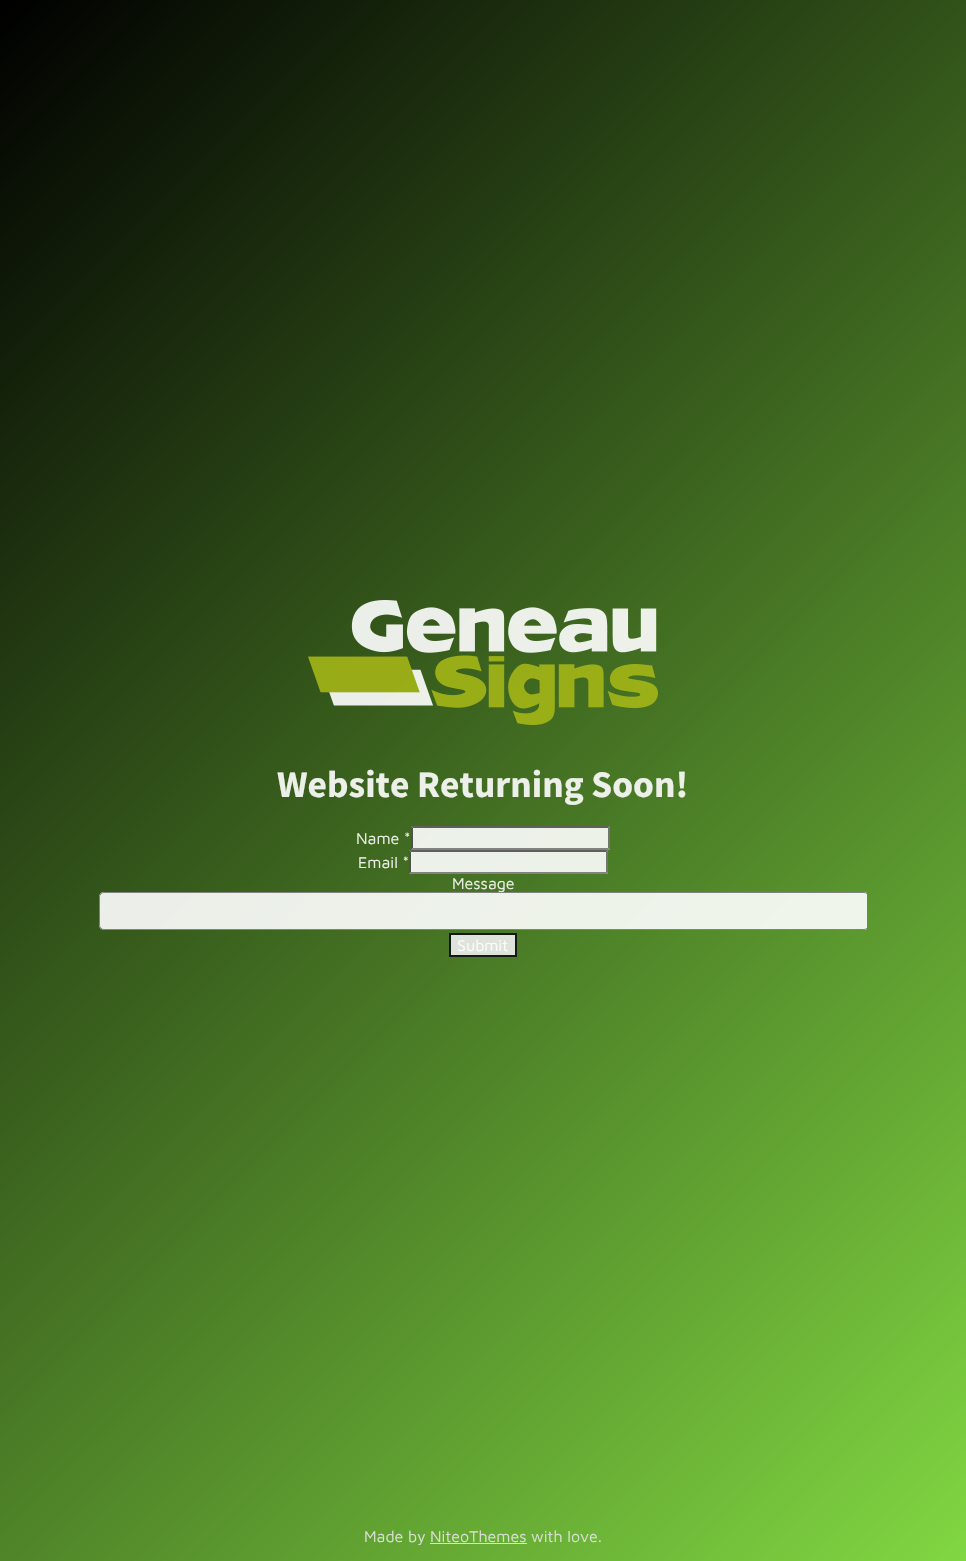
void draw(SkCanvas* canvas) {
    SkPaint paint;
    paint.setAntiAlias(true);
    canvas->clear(0xFFFFFFFF);
    {
        const SkColor colors[] = {0xFF000000, 0xFF81D742};
        const float stops[] = {0, 1};
        const SkPoint ends[] = {{-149, 149}, {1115, 1412}};
        paint.setShader(SkGradientShader::MakeLinear(ends, colors, stops, 2, SkTileMode::kClamp));
        paint.setAlpha(255);
    }
    canvas->drawRect(SkRect::MakeXYWH(0, 0, 966, 1561), paint);
    {
        const SkColor colors[] = {0xFFCFCFCF, 0xFFDCE5D6};
        const float stops[] = {0, 1};
        const SkPoint ends[] = {{-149, 149}, {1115, 1412}};
        paint.setShader(SkGradientShader::MakeLinear(ends, colors, stops, 2, SkTileMode::kClamp));
        paint.setAlpha(255);
    }
    canvas->drawRect(SkRect::MakeXYWH(430, 1543, 97, 1), paint);
    {
        const SkColor colors[] = {0xFFD7D7D7, 0xFFE4EDDE};
        const float stops[] = {0, 1};
        const SkPoint ends[] = {{-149, 149}, {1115, 1412}};
        paint.setShader(SkGradientShader::MakeLinear(ends, colors, stops, 2, SkTileMode::kClamp));
        paint.setAlpha(255);
    }
    canvas->drawRect(SkRect::MakeXYWH(451, 935, 64, 20), paint);
    {
        const SkColor colors[] = {0xFFE6E6E6, 0xFFF2FBEC};
        const float stops[] = {0, 1};
        const SkPoint ends[] = {{-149, 149}, {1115, 1412}};
        paint.setShader(SkGradientShader::MakeLinear(ends, colors, stops, 2, SkTileMode::kClamp));
        paint.setAlpha(255);
    }
    canvas->drawRect(SkRect::MakeXYWH(409, 850, 199, 24), paint);
    canvas->drawRect(SkRect::MakeXYWH(411, 826, 199, 24), paint);
    canvas->drawImageRect(SkImages::DeferredFromEncodedData(SkData::MakeFromFileName("img1.png")), SkRect::MakeXYWH(308, 600, 350, 125), SkSamplingOptions());
    SkFont font1(fontMgr->matchFamilyStyle("Source Sans Pro", SkFontStyle::Bold()), 37.6f);
    font1.setSubpixel(true);
    paint.setShader(nullptr);
    paint.setColor(0xFFECF0E9);
    canvas->drawString("Website Returning Soon!", 277, 797, font1, paint);
    SkFont font2(fontMgr->matchFamilyStyle("Maven Pro", SkFontStyle::Normal()), 16);
    font2.setSubpixel(true);
    canvas->drawString("Name *", 356, 844, font2, paint);
    paint.setColor(0xFF5F5F5E);
    canvas->drawPath(SkPathBuilder().moveTo(411, 826).lineTo(610, 826).lineTo(608, 828).lineTo(413, 828).close().detach(), paint);
    paint.setColor(0xFF72776E);
    canvas->drawPath(SkPathBuilder().moveTo(610, 826).lineTo(610, 850).lineTo(608, 848).lineTo(608, 828).close().detach(), paint);
    paint.setColor(0xE6767676);
    canvas->drawPath(SkPathBuilder().moveTo(610, 850).lineTo(411, 850).lineTo(413, 848).lineTo(608, 848).close().detach(), paint);
    paint.setColor(0xFF4D524A);
    canvas->drawPath(SkPathBuilder().moveTo(411, 850).lineTo(411, 826).lineTo(413, 828).lineTo(413, 848).close().detach(), paint);
    paint.setColor(0xFFECF0E9);
    canvas->drawString("Email *", 358, 868, font2, paint);
    paint.setColor(0xFF5F5F5E);
    canvas->drawPath(SkPathBuilder().moveTo(409, 850).lineTo(608, 850).lineTo(606, 852).lineTo(411, 852).close().detach(), paint);
    paint.setColor(0xFF72776E);
    canvas->drawPath(SkPathBuilder().moveTo(608, 850).lineTo(608, 874).lineTo(606, 872).lineTo(606, 852).close().detach(), paint);
    paint.setColor(0xE6767676);
    canvas->drawPath(SkPathBuilder().moveTo(608, 874).lineTo(409, 874).lineTo(411, 872).lineTo(606, 872).close().detach(), paint);
    paint.setColor(0xFF4E524A);
    canvas->drawPath(SkPathBuilder().moveTo(409, 874).lineTo(409, 850).lineTo(411, 852).lineTo(411, 872).close().detach(), paint);
    paint.setColor(0xFFECF0E9);
    canvas->drawString("Message", 452, 889, font2, paint);
    canvas->save();
    canvas->clipRect(SkRect::MakeXYWH(99, 0, 768, 1527));
    paint.setColor(0xE6FFFFFF);
    canvas->drawRoundRect(SkRect::MakeXYWH(99, 892, 770, 38), 5, 5, paint);
    paint.setStyle(SkPaint::kStroke_Style);
    paint.setStrokeWidth(1);
    paint.setColor(0xE6767676);
    canvas->drawRoundRect(SkRect::MakeXYWH(99.5f, 892.5f, 769, 37), 4.5f, 4.5f, paint);
    canvas->restore();
    paint.setStrokeWidth(2);
    paint.setColor(0xFF161716);
    canvas->drawRect(SkRect::MakeXYWH(450, 934, 66, 22), paint);
    paint.setStyle(SkPaint::kFill_Style);
    paint.setColor(0xFFFCFCFB);
    canvas->drawString("Submit", 457, 951, font2, paint);
    paint.setColor(0xFFD9DFD4);
    canvas->drawString("Made by", 364, 1542, font2, paint);
    canvas->drawString("NiteoThemes", 430, 1542, font2, paint);
    canvas->drawString("with love.", 531, 1542, font2, paint);
}
